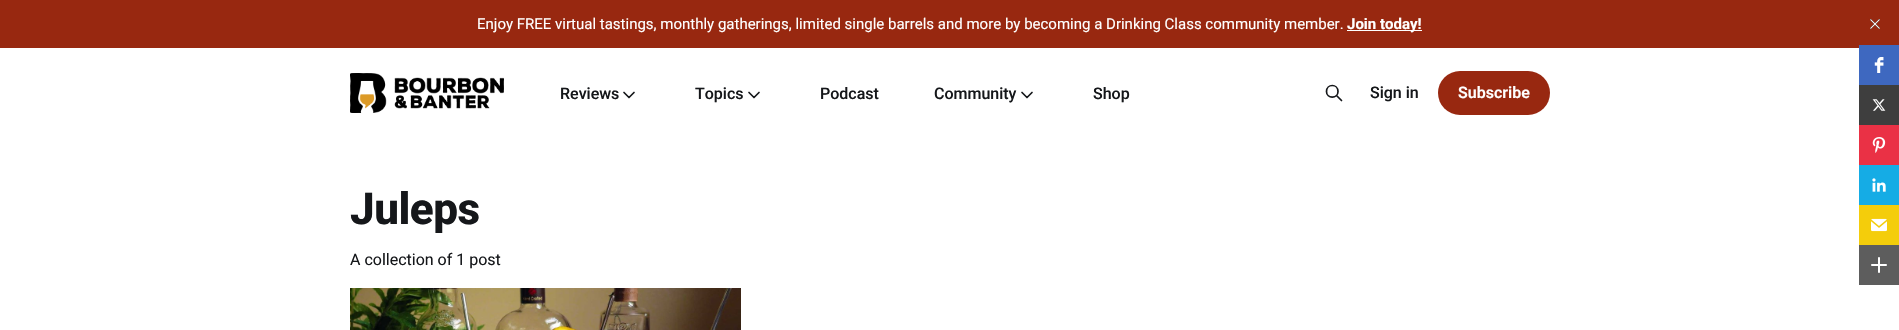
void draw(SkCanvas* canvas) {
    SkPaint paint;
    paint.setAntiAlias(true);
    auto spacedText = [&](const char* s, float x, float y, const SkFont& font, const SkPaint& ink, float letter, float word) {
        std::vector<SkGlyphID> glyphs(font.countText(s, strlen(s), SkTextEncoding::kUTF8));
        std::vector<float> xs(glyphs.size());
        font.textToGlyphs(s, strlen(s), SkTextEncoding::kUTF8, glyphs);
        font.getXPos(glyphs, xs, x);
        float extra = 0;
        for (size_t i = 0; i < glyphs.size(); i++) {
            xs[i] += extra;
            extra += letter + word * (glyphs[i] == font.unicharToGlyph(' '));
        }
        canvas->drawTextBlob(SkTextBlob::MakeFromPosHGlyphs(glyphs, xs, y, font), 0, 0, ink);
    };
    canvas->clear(0xFFFFFFFF);
    paint.setColor(0xFF982810);
    canvas->drawRect(SkRect::MakeXYWH(0, 0, 1899, 48), paint);
    SkFont font1(fontMgr->matchFamilyStyle("Roboto", SkFontStyle::Normal()), 15);
    font1.setSubpixel(true);
    paint.setColor(0xFFFFFFFF);
    canvas->drawString("Enjoy FREE virtual tastings, monthly gatherings, limited single barrels and more by becoming a Drinking Class community member.", 477, 29, font1, paint);
    canvas->drawRect(SkRect::MakeXYWH(1347, 30, 75, 1), paint);
    SkFont font2(fontMgr->matchFamilyStyle("Roboto", SkFontStyle::Bold()), 15);
    font2.setSubpixel(true);
    canvas->drawString("Join today!", 1347, 29, font2, paint);
    canvas->drawImageRect(SkImages::DeferredFromEncodedData(SkData::MakeFromFileName("img1.png")), SkRect::MakeXYWH(1870, 19, 10, 10), SkSamplingOptions());
    canvas->drawImageRect(SkImages::DeferredFromEncodedData(SkData::MakeFromFileName("img2.png")), SkRect::MakeXYWH(350, 73, 154, 40), SkSamplingOptions());
    SkFont font3(fontMgr->matchFamilyStyle("Roboto", SkFontStyle(500, SkFontStyle::kNormal_Width, SkFontStyle::kUpright_Slant)), 16);
    font3.setSubpixel(true);
    paint.setColor(0xFF15171A);
    canvas->drawString("Reviews", 560, 99, font3, paint);
    paint.setStyle(SkPaint::kStroke_Style);
    paint.setStrokeWidth(1.7f);
    paint.setStrokeCap(SkPaint::kRound_Cap);
    paint.setStrokeJoin(SkPaint::kRound_Join);
    canvas->drawPath(SkPathBuilder().moveTo(624, 92.5f).lineTo(629, 97.5f).lineTo(634, 92.5f).detach(), paint);
    paint.setStyle(SkPaint::kFill_Style);
    canvas->drawString("Topics", 695, 99, font3, paint);
    paint.setStyle(SkPaint::kStroke_Style);
    canvas->drawPath(SkPathBuilder().moveTo(749, 92.5f).lineTo(754, 97.5f).lineTo(759, 92.5f).detach(), paint);
    paint.setStyle(SkPaint::kFill_Style);
    canvas->drawString("Podcast", 820, 99, font3, paint);
    canvas->drawString("Community", 934, 99, font3, paint);
    paint.setStyle(SkPaint::kStroke_Style);
    canvas->drawPath(SkPathBuilder().moveTo(1022, 92.5f).lineTo(1027, 97.5f).lineTo(1032, 92.5f).detach(), paint);
    paint.setStyle(SkPaint::kFill_Style);
    canvas->drawString("Shop", 1093, 99, font3, paint);
    paint.setStyle(SkPaint::kStroke_Style);
    canvas->drawPath(SkPathBuilder().moveTo(1341.5f, 100.5f).lineTo(1336.5f, 95.5f).moveTo(1338, 91.5f).cubicTo(1338, 99, 1326.5f, 99, 1326.5f, 91.5f).cubicTo(1326.5f, 83.5f, 1338, 83.5f, 1338, 91.5f).close().detach(), paint);
    paint.setStyle(SkPaint::kFill_Style);
    canvas->drawString("Sign in", 1370, 98, font3, paint);
    paint.setColor(0xFF982810);
    canvas->drawRoundRect(SkRect::MakeXYWH(1438, 71, 112, 44), 22, 22, paint);
    SkFont font4(fontMgr->matchFamilyStyle("Roboto", SkFontStyle(600, SkFontStyle::kNormal_Width, SkFontStyle::kUpright_Slant)), 16);
    font4.setSubpixel(true);
    paint.setColor(0xFFFFFFFF);
    canvas->drawString("Subscribe", 1458, 98, font4, paint);
    SkFont font5(fontMgr->matchFamilyStyle("Roboto", SkFontStyle(800, SkFontStyle::kNormal_Width, SkFontStyle::kUpright_Slant)), 44);
    font5.setSubpixel(true);
    paint.setColor(0xFF15171A);
    spacedText("Juleps", 350, 224, font5, paint, -0.5f, 0);
    SkFont font6(fontMgr->matchFamilyStyle("Roboto", SkFontStyle::Normal()), 16);
    font6.setSubpixel(true);
    canvas->drawString("A collection of 1 post", 350, 265, font6, paint);
    canvas->drawImageRect(SkImages::DeferredFromEncodedData(SkData::MakeFromFileName("img3.png")), SkRect::MakeXYWH(350, 288, 391, 42), SkSamplingOptions());
    paint.setColor(0xFF3E68C0);
    canvas->drawRect(SkRect::MakeXYWH(1859, 45, 40, 40), paint);
    canvas->drawImageRect(SkImages::DeferredFromEncodedData(SkData::MakeFromFileName("img4.png")), SkRect::MakeXYWH(1874, 57, 10, 16), SkSamplingOptions());
    paint.setColor(0xFF3E3E3E);
    canvas->drawRect(SkRect::MakeXYWH(1859, 85, 40, 40), paint);
    canvas->drawImageRect(SkImages::DeferredFromEncodedData(SkData::MakeFromFileName("img5.png")), SkRect::MakeXYWH(1872, 99, 14, 12), SkSamplingOptions());
    paint.setColor(0xFFEA3145);
    canvas->drawRect(SkRect::MakeXYWH(1859, 125, 40, 40), paint);
    canvas->drawImageRect(SkImages::DeferredFromEncodedData(SkData::MakeFromFileName("img6.png")), SkRect::MakeXYWH(1872, 137, 14, 16), SkSamplingOptions());
    paint.setColor(0xFF15ACE5);
    canvas->drawRect(SkRect::MakeXYWH(1859, 165, 40, 40), paint);
    canvas->drawImageRect(SkImages::DeferredFromEncodedData(SkData::MakeFromFileName("img7.png")), SkRect::MakeXYWH(1872, 178, 14, 14), SkSamplingOptions());
    paint.setColor(0xFFF4CD0B);
    canvas->drawRect(SkRect::MakeXYWH(1859, 205, 40, 40), paint);
    canvas->drawImageRect(SkImages::DeferredFromEncodedData(SkData::MakeFromFileName("img8.png")), SkRect::MakeXYWH(1871, 218, 16, 14), SkSamplingOptions());
    paint.setColor(0xFF5D5D5D);
    canvas->drawRect(SkRect::MakeXYWH(1859, 245, 40, 40), paint);
    canvas->drawImageRect(SkImages::DeferredFromEncodedData(SkData::MakeFromFileName("img9.png")), SkRect::MakeXYWH(1871, 257, 16, 16), SkSamplingOptions());
}
